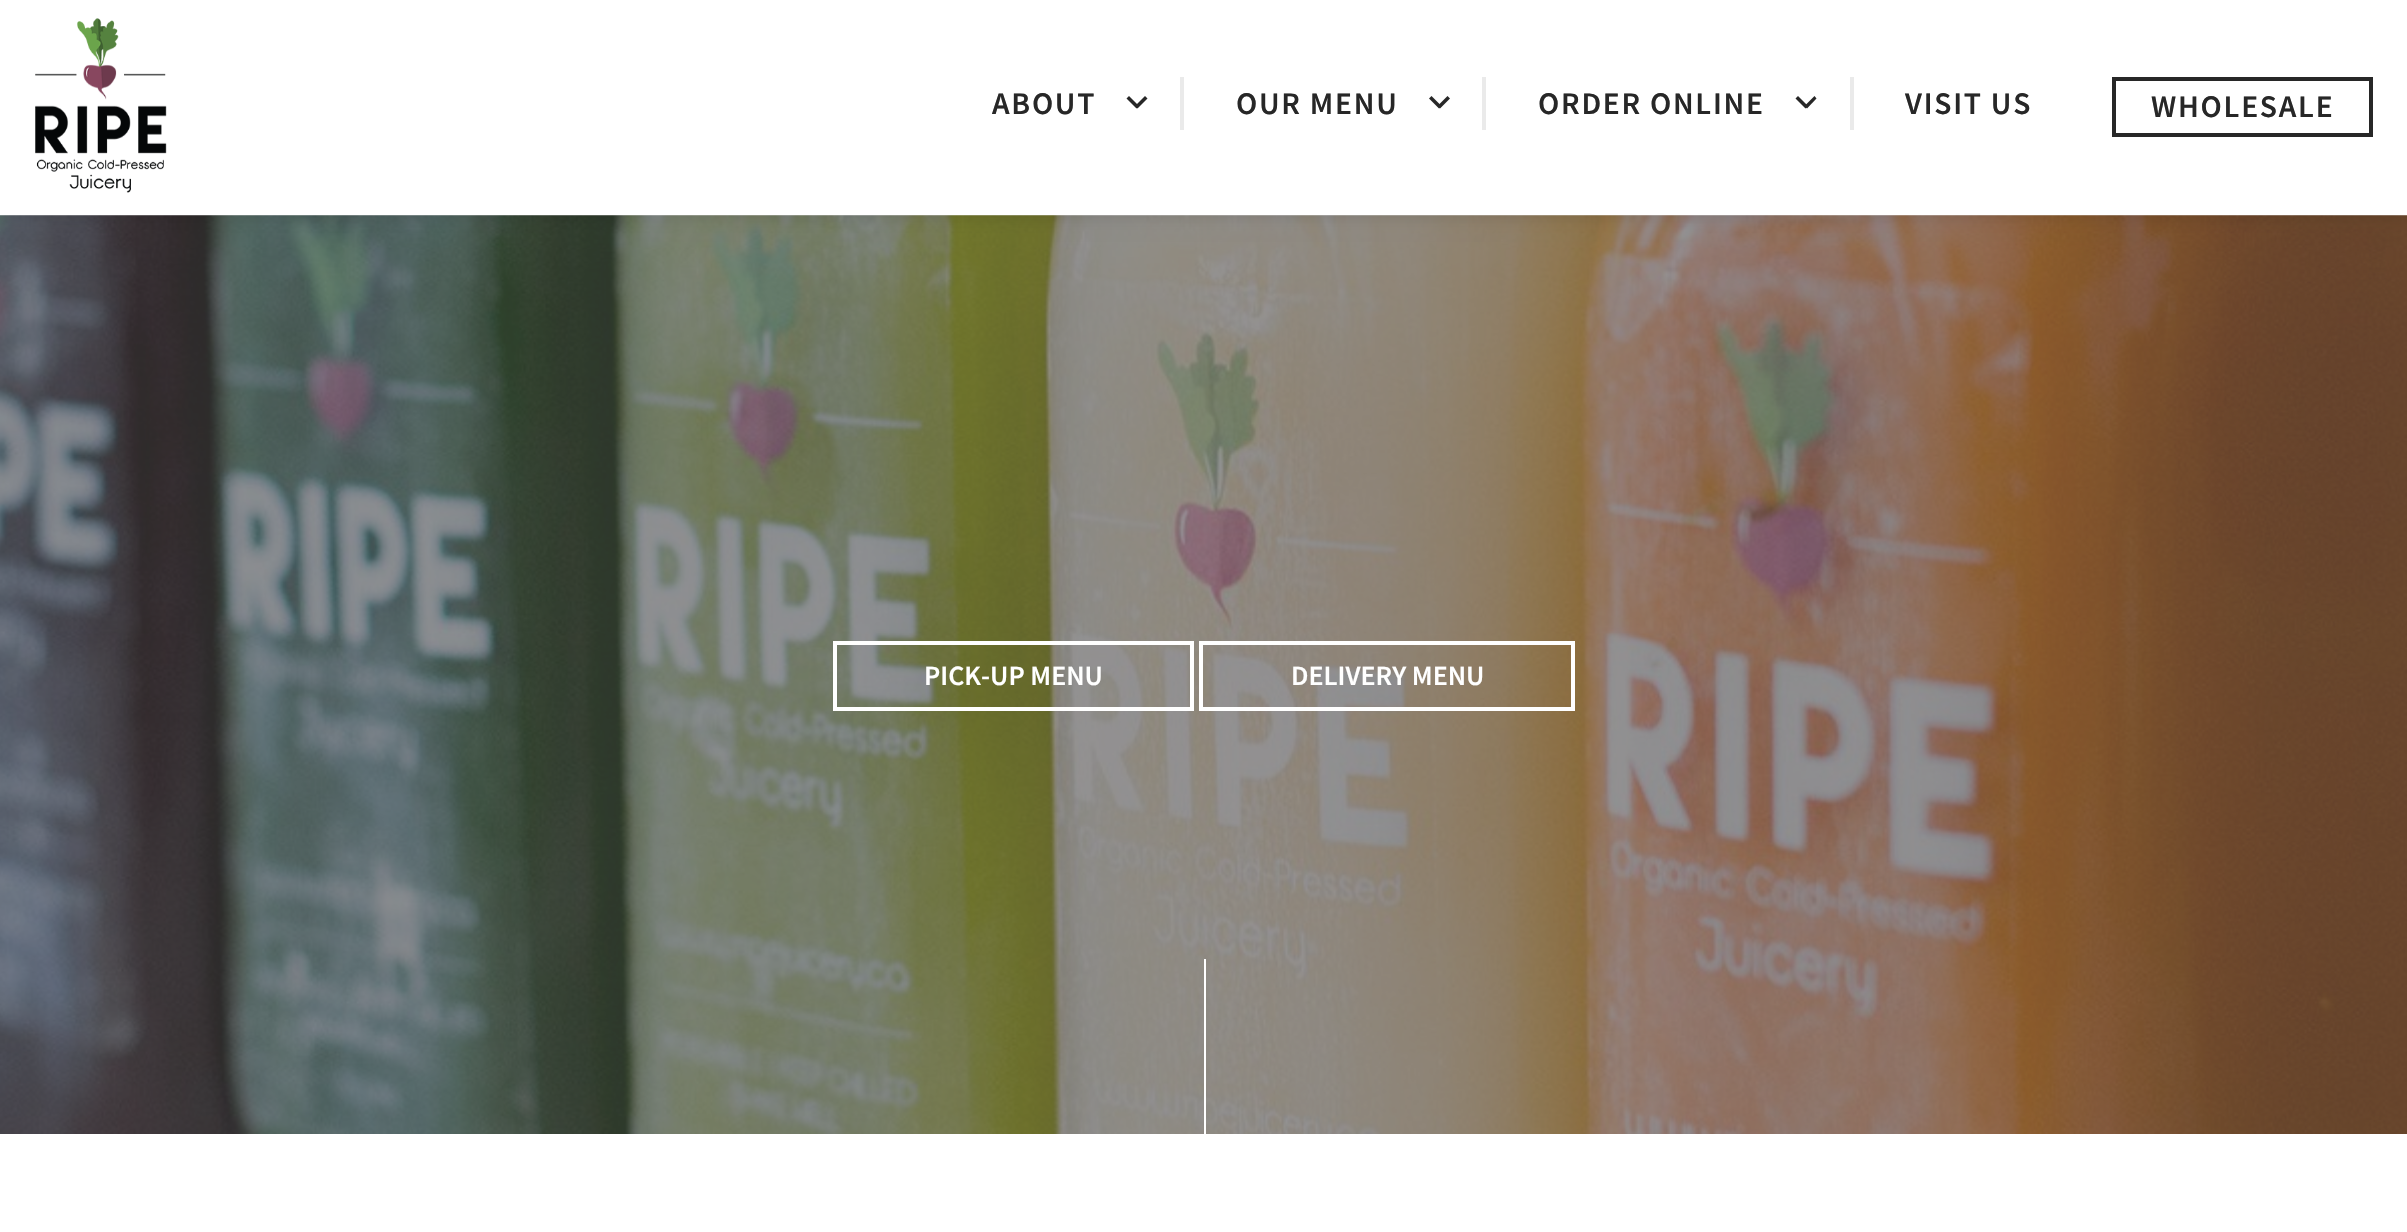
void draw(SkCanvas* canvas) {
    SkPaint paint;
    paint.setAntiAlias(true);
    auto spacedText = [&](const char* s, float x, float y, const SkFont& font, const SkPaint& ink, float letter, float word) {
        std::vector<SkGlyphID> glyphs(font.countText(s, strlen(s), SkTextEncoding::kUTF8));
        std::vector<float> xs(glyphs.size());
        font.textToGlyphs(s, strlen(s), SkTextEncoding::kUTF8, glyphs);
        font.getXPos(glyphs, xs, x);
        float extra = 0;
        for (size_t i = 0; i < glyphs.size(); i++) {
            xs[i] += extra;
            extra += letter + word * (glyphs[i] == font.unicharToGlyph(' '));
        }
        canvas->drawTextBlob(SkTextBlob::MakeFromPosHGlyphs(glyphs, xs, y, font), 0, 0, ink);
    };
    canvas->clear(0xFFFFFFFF);
    canvas->drawImageRect(SkImages::DeferredFromEncodedData(SkData::MakeFromFileName("img2.png")), SkRect::MakeXYWH(0, 215, 2407, 919), SkSamplingOptions());
    paint.setColor(0x26000000);
    paint.setMaskFilter(SkMaskFilter::MakeBlur(kNormal_SkBlurStyle, 9));
    canvas->drawRect(SkRect::MakeXYWH(0, 0, 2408, 215), paint);
    paint.setMaskFilter(nullptr);
    paint.setColor(0xFFFFFFFF);
    canvas->drawRect(SkRect::MakeXYWH(0, 0, 2407, 215), paint);
    canvas->drawImageRect(SkImages::DeferredFromEncodedData(SkData::MakeFromFileName("img1.png")), SkRect::MakeXYWH(35, 18, 132, 175), SkSamplingOptions());
    SkFont font1(fontMgr->matchFamilyStyle("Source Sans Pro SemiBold", SkFontStyle(600, SkFontStyle::kNormal_Width, SkFontStyle::kUpright_Slant)), 31.5f);
    font1.setSubpixel(true);
    paint.setColor(0xFF272727);
    spacedText("ABOUT", 992, 114, font1, paint, 1.75f, 0);
    paint.setColor(0xFFEAEAEA);
    canvas->drawRect(SkRect::MakeXYWH(1180, 77, 4, 53), paint);
    paint.setColor(0xFF272727);
    canvas->drawPath(SkPathBuilder().moveTo(1129, 96).lineTo(1139, 106).lineTo(1136.5f, 108.5f).lineTo(1126.5f, 98.5f).close().detach(), paint);
    canvas->drawPath(SkPathBuilder().moveTo(1135, 106).lineTo(1145, 96).lineTo(1147.5f, 98.5f).lineTo(1137.5f, 108.5f).close().detach(), paint);
    spacedText("OUR MENU", 1236, 114, font1, paint, 1.75f, 0);
    paint.setColor(0xFFEAEAEA);
    canvas->drawRect(SkRect::MakeXYWH(1482, 77, 4, 53), paint);
    paint.setColor(0xFF272727);
    canvas->drawPath(SkPathBuilder().moveTo(1431.5f, 96).lineTo(1441.5f, 106).lineTo(1439, 108.5f).lineTo(1429, 98.5f).close().detach(), paint);
    canvas->drawPath(SkPathBuilder().moveTo(1437.5f, 106).lineTo(1447.5f, 96).lineTo(1450, 98.5f).lineTo(1440, 108.5f).close().detach(), paint);
    spacedText("ORDER ONLINE", 1538, 114, font1, paint, 1.75f, 0);
    paint.setColor(0xFFEAEAEA);
    canvas->drawRect(SkRect::MakeXYWH(1850, 77, 4, 53), paint);
    paint.setColor(0xFF272727);
    canvas->drawPath(SkPathBuilder().moveTo(1798, 96).lineTo(1808, 106).lineTo(1805.5f, 108.5f).lineTo(1795.5f, 98.5f).close().detach(), paint);
    canvas->drawPath(SkPathBuilder().moveTo(1804.5f, 106).lineTo(1814.5f, 96).lineTo(1816.5f, 98.5f).lineTo(1807, 108.5f).close().detach(), paint);
    spacedText("VISIT US", 1905, 114, font1, paint, 1.75f, 0);
    paint.setStyle(SkPaint::kStroke_Style);
    paint.setStrokeWidth(4);
    canvas->drawRect(SkRect::MakeXYWH(2114, 79, 257, 56), paint);
    paint.setStyle(SkPaint::kFill_Style);
    spacedText("WHOLESALE", 2151, 117, font1, paint, 1.75f, 0);
    paint.setStyle(SkPaint::kStroke_Style);
    paint.setColor(0xFFFFFFFF);
    canvas->drawRect(SkRect::MakeXYWH(835, 643, 357, 66), paint);
    SkFont font2(fontMgr->matchFamilyStyle("Source Sans Pro SemiBold", SkFontStyle(600, SkFontStyle::kNormal_Width, SkFontStyle::kUpright_Slant)), 28);
    font2.setSubpixel(true);
    paint.setStyle(SkPaint::kFill_Style);
    canvas->drawString("PICK-UP MENU", 924, 685, font2, paint);
    paint.setStyle(SkPaint::kStroke_Style);
    canvas->drawRect(SkRect::MakeXYWH(1201, 643, 372, 66), paint);
    paint.setStyle(SkPaint::kFill_Style);
    canvas->drawString("DELIVERY MENU", 1291, 685, font2, paint);
    canvas->drawRect(SkRect::MakeXYWH(1204, 959, 2, 175), paint);
}
